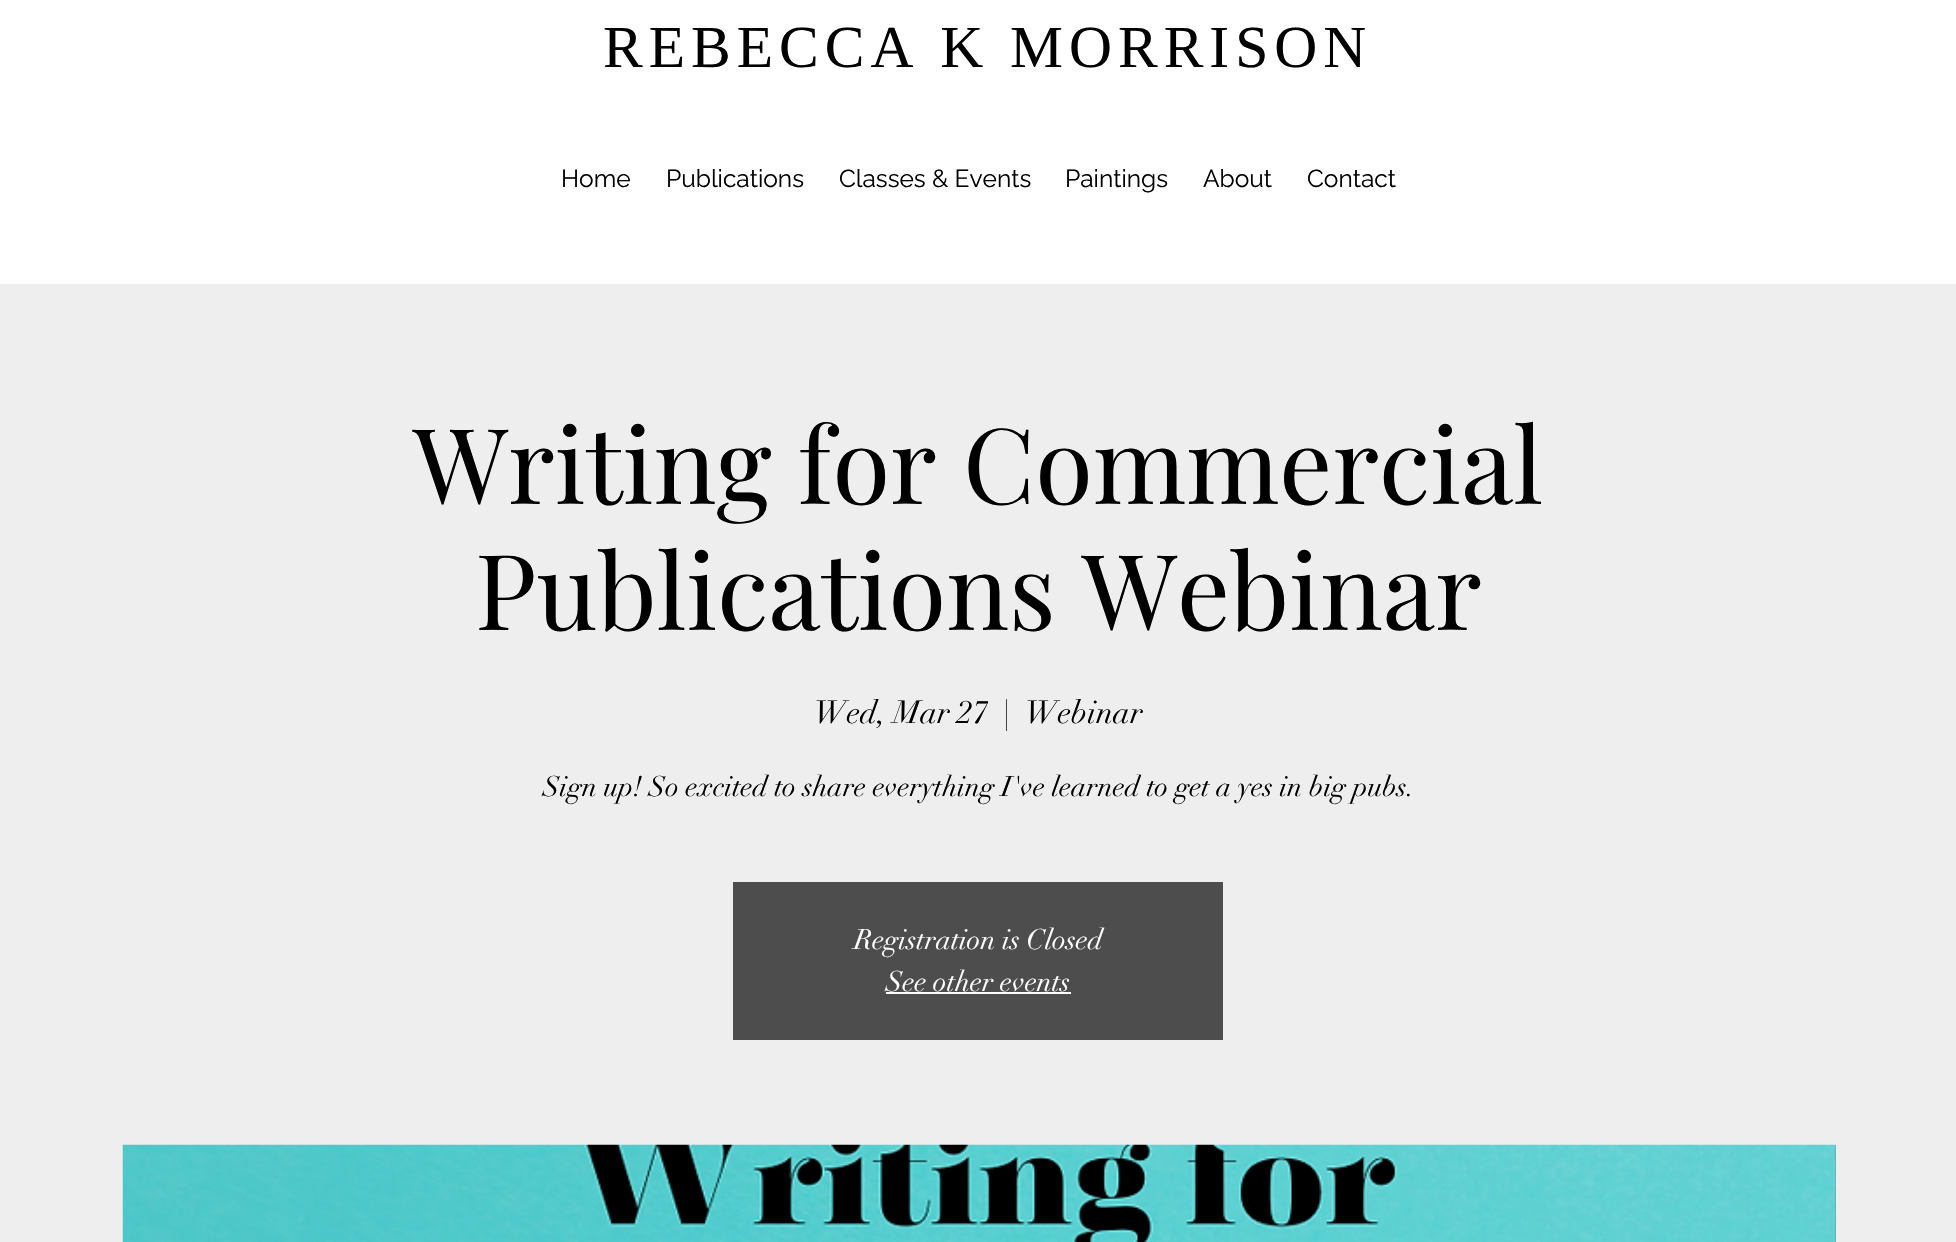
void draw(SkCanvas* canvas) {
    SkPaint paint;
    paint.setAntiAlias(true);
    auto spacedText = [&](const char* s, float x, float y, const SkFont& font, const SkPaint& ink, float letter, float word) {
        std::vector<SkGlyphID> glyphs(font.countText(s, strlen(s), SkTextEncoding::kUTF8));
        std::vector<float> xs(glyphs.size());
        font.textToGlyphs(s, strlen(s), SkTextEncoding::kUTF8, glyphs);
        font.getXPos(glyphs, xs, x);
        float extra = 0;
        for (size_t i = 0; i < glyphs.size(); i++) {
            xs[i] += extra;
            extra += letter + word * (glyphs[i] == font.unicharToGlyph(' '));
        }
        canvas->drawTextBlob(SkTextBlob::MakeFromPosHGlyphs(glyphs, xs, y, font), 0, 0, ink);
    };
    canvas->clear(0xFFFFFFFF);
    SkFont font1(fontMgr->matchFamilyStyle("Liberation Serif", SkFontStyle::Normal()), 59.5f);
    font1.setSubpixel(true);
    paint.setColor(0xFF000000);
    spacedText("REBECCA K MORRISON", 603, 67, font1, paint, 6, 0);
    SkFont font2(fontMgr->matchFamilyStyle("Raleway", SkFontStyle::Normal()), 24.5f);
    font2.setSubpixel(true);
    canvas->drawString("Home", 561, 187, font2, paint);
    canvas->drawString("Publications", 666, 187, font2, paint);
    canvas->drawString("Classes & Events", 839, 187, font2, paint);
    canvas->drawString("Paintings", 1065, 187, font2, paint);
    canvas->drawString("About", 1203, 187, font2, paint);
    canvas->drawString("Contact", 1307, 187, font2, paint);
    paint.setColor(0xFFEEEEEE);
    canvas->drawRect(SkRect::MakeXYWH(0, 284, 1956, 958), paint);
    SkFont font3(fontMgr->matchFamilyStyle("Playfair Display", SkFontStyle::Normal()), 105);
    font3.setSubpixel(true);
    paint.setColor(0xFF000000);
    canvas->drawString("Writing for Commercial", 413, 504, font3, paint);
    canvas->drawString("Publications Webinar", 475, 630, font3, paint);
    SkFont font4(fontMgr->matchFamilyStyle("didot", SkFontStyle::Normal()), 31.5f);
    font4.setSubpixel(true);
    canvas->drawString("Wed, Mar 27", 814, 723, font4, paint);
    canvas->drawString("|", 1003, 723, font4, paint);
    canvas->drawString("Webinar", 1025, 723, font4, paint);
    SkFont font5(fontMgr->matchFamilyStyle("didot", SkFontStyle::Normal()), 28);
    font5.setSubpixel(true);
    canvas->drawString("Sign up! So excited to share everything I've learned to get a yes in big pubs.", 543, 796, font5, paint);
    paint.setColor(0xFF4D4D4D);
    canvas->drawRect(SkRect::MakeXYWH(733, 882, 490, 158), paint);
    paint.setColor(0xFFFFFFFF);
    canvas->drawString("Registration is Closed", 854, 949, font5, paint);
    canvas->drawString("See other events", 886, 991, font5, paint);
    canvas->drawRect(SkRect::MakeXYWH(886, 992, 185, 2), paint);
    paint.setColor(0xFF888888);
    canvas->drawRect(SkRect::MakeXYWH(1835, 1145, 1, 97), paint);
    canvas->drawImageRect(SkImages::DeferredFromEncodedData(SkData::MakeFromFileName("img1.png")), SkRect::MakeXYWH(122, 1144, 1714, 98), SkSamplingOptions());
}
